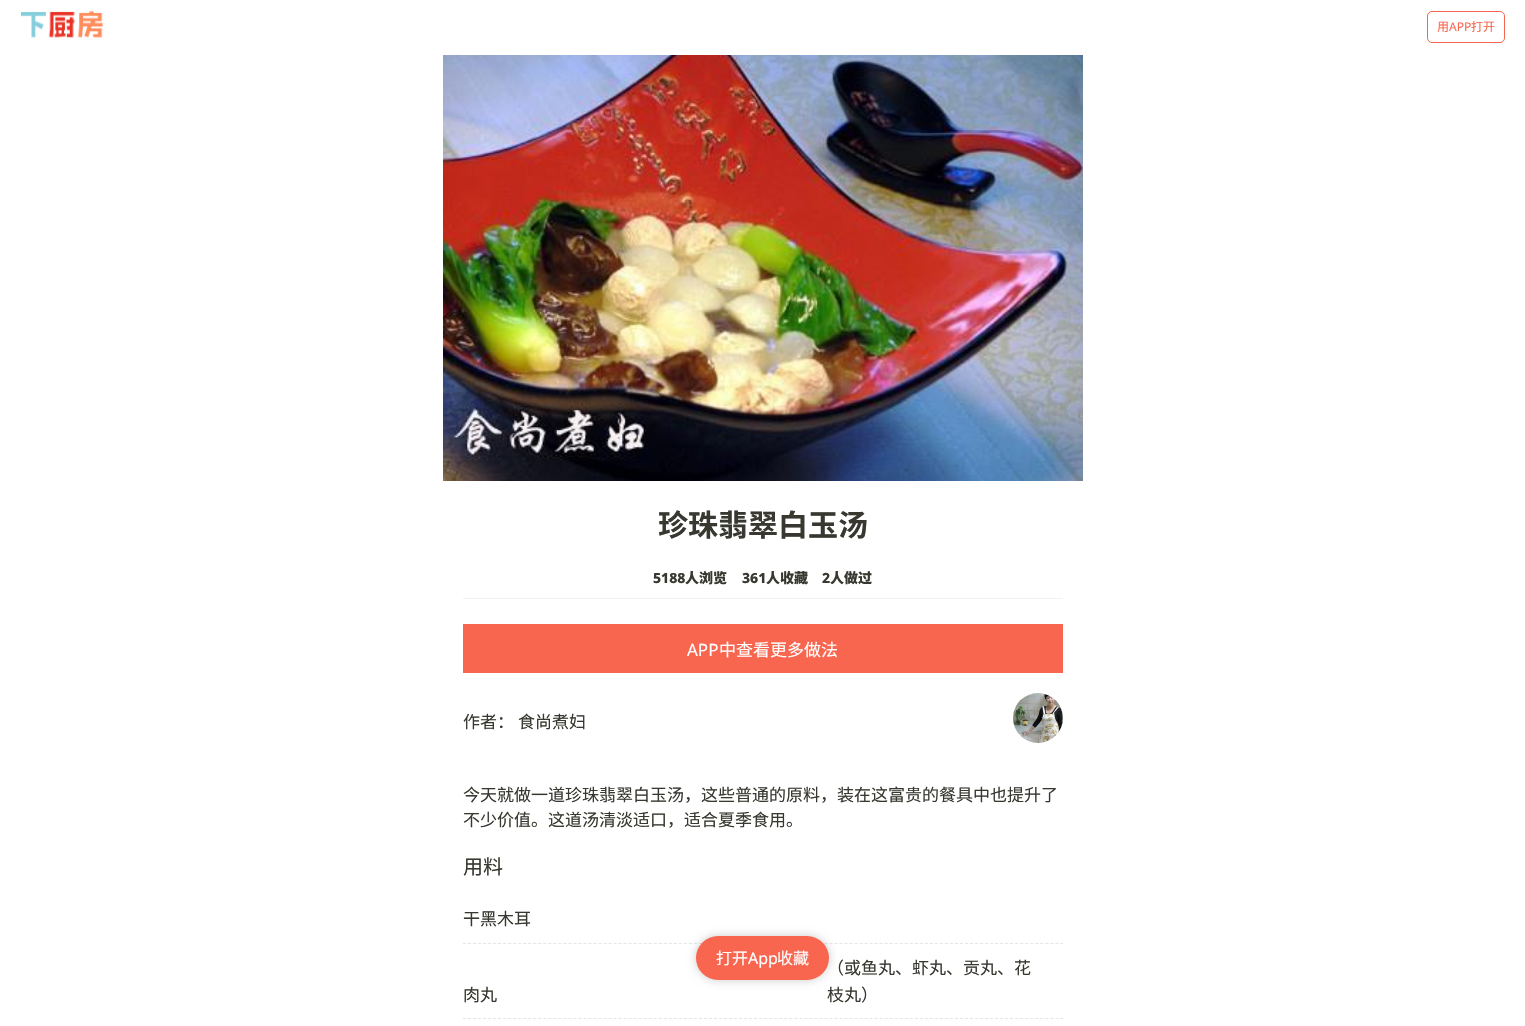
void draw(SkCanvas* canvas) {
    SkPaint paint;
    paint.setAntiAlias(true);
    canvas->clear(0xFFFFFFFF);
    canvas->drawImageRect(SkImages::DeferredFromEncodedData(SkData::MakeFromFileName("img1.png")), SkRect::MakeXYWH(21, 11, 83, 27), SkSamplingOptions());
    paint.setStyle(SkPaint::kStroke_Style);
    paint.setStrokeWidth(1);
    paint.setColor(0xFFF96650);
    canvas->drawRoundRect(SkRect::MakeXYWH(1427.5f, 11.5f, 77, 31), 4.5f, 4.5f, paint);
    SkFont font1(fontMgr->matchFamilyStyle("Noto Sans CJK SC", SkFontStyle::Normal()), 12);
    font1.setSubpixel(true);
    paint.setStyle(SkPaint::kFill_Style);
    canvas->drawString("用", 1437, 31, font1, paint);
    SkFont font2(fontMgr->matchFamilyStyle("Noto Sans", SkFontStyle::Normal()), 12);
    font2.setSubpixel(true);
    canvas->drawString("APP", 1449, 31, font2, paint);
    canvas->drawString("打开", 1471, 31, font1, paint);
    canvas->drawImageRect(SkImages::DeferredFromEncodedData(SkData::MakeFromFileName("img2.png")), SkRect::MakeXYWH(443, 55, 640, 426), SkSamplingOptions());
    SkFont font3(fontMgr->matchFamilyStyle("Noto Sans CJK SC", SkFontStyle::Bold()), 30);
    font3.setSubpixel(true);
    paint.setColor(0xFF383831);
    canvas->drawString("珍珠翡翠白玉汤", 658, 536, font3, paint);
    paint.setColor(0xFFF2F2F2);
    canvas->drawRect(SkRect::MakeXYWH(463, 598, 600, 1), paint);
    SkFont font4(fontMgr->matchFamilyStyle("Noto Sans", SkFontStyle(800, SkFontStyle::kNormal_Width, SkFontStyle::kUpright_Slant)), 14);
    font4.setSubpixel(true);
    paint.setColor(0xFF383831);
    canvas->drawString("5188", 653, 583, font4, paint);
    SkFont font5(fontMgr->matchFamilyStyle("Noto Sans CJK SC", SkFontStyle(900, SkFontStyle::kNormal_Width, SkFontStyle::kUpright_Slant)), 14);
    font5.setSubpixel(true);
    canvas->drawString("人浏览", 685, 583, font5, paint);
    canvas->drawString("361", 742, 583, font4, paint);
    canvas->drawString("人收藏", 766, 583, font5, paint);
    canvas->drawString("2", 822, 583, font4, paint);
    canvas->drawString("人做过", 830, 583, font5, paint);
    paint.setColor(0xFFF96650);
    canvas->drawRect(SkRect::MakeXYWH(463, 624, 600, 49), paint);
    SkFont font6(fontMgr->matchFamilyStyle("Noto Sans", SkFontStyle::Normal()), 17);
    font6.setSubpixel(true);
    paint.setColor(0xFFFFFFFF);
    canvas->drawString("APP", 687, 656, font6, paint);
    SkFont font7(fontMgr->matchFamilyStyle("Noto Sans CJK SC", SkFontStyle::Normal()), 17);
    font7.setSubpixel(true);
    canvas->drawString("中查看更多做法", 719, 656, font7, paint);
    paint.setColor(0xFF383831);
    canvas->drawString("作者：", 463, 728, font7, paint);
    canvas->drawString("食尚煮妇", 518, 728, font7, paint);
    canvas->drawImageRect(SkImages::DeferredFromEncodedData(SkData::MakeFromFileName("img3.png")), SkRect::MakeXYWH(1013, 693, 50, 50), SkSamplingOptions());
    canvas->drawString("今天就做一道珍珠翡翠白玉汤，这些普通的原料，装在这富贵的餐具中也提升了", 463, 801, font7, paint);
    canvas->drawString("不少价值。这道汤清淡适口，适合夏季食用。", 463, 826, font7, paint);
    SkFont font8(fontMgr->matchFamilyStyle("Noto Sans CJK SC", SkFontStyle::Normal()), 20);
    font8.setSubpixel(true);
    canvas->drawString("用料", 463, 874, font8, paint);
    paint.setStyle(SkPaint::kStroke_Style);
    paint.setColor(0xFFE5E5E3);
    paint.setPathEffect(SkDashPathEffect::Make({{3, 2.02f}}, 0));
    canvas->drawPath(SkPathBuilder().moveTo(463, 943.5f).lineTo(1063, 943.5f).detach(), paint);
    paint.setPathEffect(nullptr);
    paint.setStyle(SkPaint::kFill_Style);
    paint.setColor(0xFF383831);
    canvas->drawString("干黑木耳", 463, 925, font7, paint);
    paint.setStyle(SkPaint::kStroke_Style);
    paint.setColor(0xFFE5E5E3);
    paint.setPathEffect(SkDashPathEffect::Make({{3, 2.02f}}, 0));
    canvas->drawPath(SkPathBuilder().moveTo(463, 1018.5f).lineTo(1063, 1018.5f).detach(), paint);
    paint.setPathEffect(nullptr);
    paint.setStyle(SkPaint::kFill_Style);
    paint.setColor(0xFF383831);
    canvas->drawString("肉丸", 463, 1001, font7, paint);
    canvas->drawString("（或鱼丸、虾丸、贡丸、花", 827, 974, font7, paint);
    canvas->drawString("枝丸）", 827, 1001, font7, paint);
    paint.setColor(0x33000000);
    paint.setMaskFilter(SkMaskFilter::MakeBlur(kNormal_SkBlurStyle, 5));
    canvas->drawRoundRect(SkRect::MakeXYWH(696, 936, 133, 44), 22, 22, paint);
    paint.setMaskFilter(nullptr);
    paint.setColor(0xFFF96650);
    canvas->drawRoundRect(SkRect::MakeXYWH(696, 936, 133, 44), 22, 22, paint);
    SkFont font9(fontMgr->matchFamilyStyle("Noto Sans CJK SC", SkFontStyle::Normal()), 16);
    font9.setSubpixel(true);
    paint.setColor(0xFFFFFFFF);
    canvas->drawString("打开", 716, 964, font9, paint);
    SkFont font10(fontMgr->matchFamilyStyle("Noto Sans", SkFontStyle::Normal()), 16);
    font10.setSubpixel(true);
    canvas->drawString("App", 748, 964, font10, paint);
    canvas->drawString("收藏", 777, 964, font9, paint);
}
